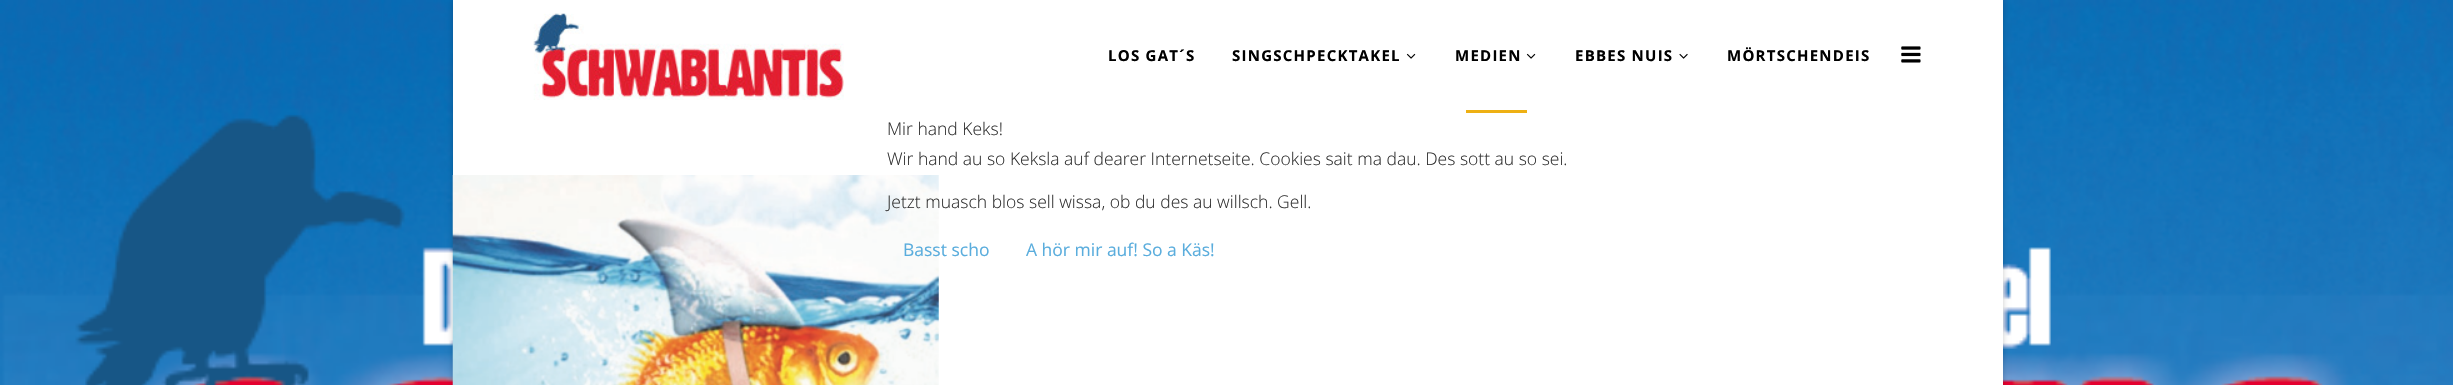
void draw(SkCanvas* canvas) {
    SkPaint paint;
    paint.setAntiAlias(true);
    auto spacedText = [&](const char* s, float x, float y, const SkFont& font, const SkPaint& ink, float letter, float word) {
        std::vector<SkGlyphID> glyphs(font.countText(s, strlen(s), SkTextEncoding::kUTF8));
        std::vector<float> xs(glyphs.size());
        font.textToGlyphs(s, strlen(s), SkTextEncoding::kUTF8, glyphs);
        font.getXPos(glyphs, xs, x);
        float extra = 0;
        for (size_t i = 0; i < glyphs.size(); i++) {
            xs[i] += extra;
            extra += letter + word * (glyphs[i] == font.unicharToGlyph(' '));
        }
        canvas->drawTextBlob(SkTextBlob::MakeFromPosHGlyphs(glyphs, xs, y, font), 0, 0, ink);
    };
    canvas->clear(0xFFFFFFFF);
    canvas->drawImageRect(SkImages::DeferredFromEncodedData(SkData::MakeFromFileName("img1.png")), SkRect::MakeXYWH(0, 0, 2453, 385), SkSamplingOptions());
    paint.setColor(0x33000000);
    paint.setMaskFilter(SkMaskFilter::MakeBlur(kNormal_SkBlurStyle, 3));
    canvas->drawRect(SkRect::MakeXYWH(453, 0, 1550, 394), paint);
    paint.setMaskFilter(nullptr);
    paint.setColor(0xFFFFFFFF);
    canvas->drawRect(SkRect::MakeXYWH(453, 0, 1550, 385), paint);
    canvas->drawImageRect(SkImages::DeferredFromEncodedData(SkData::MakeFromFileName("img2.png")), SkRect::MakeXYWH(533, 13, 311, 87), SkSamplingOptions());
    SkFont font1(fontMgr->matchFamilyStyle("Open Sans", SkFontStyle::Bold()), 15);
    font1.setSubpixel(true);
    paint.setColor(0xFF000000);
    spacedText("LOS GAT´S", 1108, 61, font1, paint, 1.25f, 0);
    spacedText("SINGSCHPECKTAKEL", 1232, 61, font1, paint, 1.25f, 0);
    canvas->drawImageRect(SkImages::DeferredFromEncodedData(SkData::MakeFromFileName("img3.png")), SkRect::MakeXYWH(1406, 53, 10, 6), SkSamplingOptions());
    paint.setColor(0xFFEEB013);
    canvas->drawRect(SkRect::MakeXYWH(1466, 110, 61, 3), paint);
    paint.setColor(0xFF000000);
    spacedText("MEDIEN", 1455, 61, font1, paint, 1.25f, 0);
    canvas->drawImageRect(SkImages::DeferredFromEncodedData(SkData::MakeFromFileName("img3.png")), SkRect::MakeXYWH(1526, 53, 10, 6), SkSamplingOptions());
    spacedText("EBBES NUIS", 1575, 61, font1, paint, 1.25f, 0);
    canvas->drawImageRect(SkImages::DeferredFromEncodedData(SkData::MakeFromFileName("img4.png")), SkRect::MakeXYWH(1679, 53, 9, 6), SkSamplingOptions());
    spacedText("MÖRTSCHENDEIS", 1727, 61, font1, paint, 1.25f, 0);
    canvas->drawImageRect(SkImages::DeferredFromEncodedData(SkData::MakeFromFileName("img5.png")), SkRect::MakeXYWH(1901, 46, 20, 17), SkSamplingOptions());
    canvas->drawImageRect(SkImages::DeferredFromEncodedData(SkData::MakeFromFileName("img6.png")), SkRect::MakeXYWH(452, 175, 487, 210), SkSamplingOptions());
    SkFont font2(fontMgr->matchFamilyStyle("Open Sans", SkFontStyle(300, SkFontStyle::kNormal_Width, SkFontStyle::kUpright_Slant)), 17.5f);
    font2.setSubpixel(true);
    paint.setColor(0xFF333333);
    canvas->drawString("Mir hand Keks!", 887, 135, font2, paint);
    canvas->drawString("Wir hand au so Keksla auf dearer Internetseite. Cookies sait ma dau. Des sott au so sei.", 887, 165, font2, paint);
    canvas->drawString("Jetzt muasch blos sell wissa, ob du des au willsch. Gell.", 887, 208, font2, paint);
    SkFont font3(fontMgr->matchFamilyStyle("Open Sans", SkFontStyle::Normal()), 17.5f);
    font3.setSubpixel(true);
    paint.setColor(0xFF5AADDD);
    canvas->drawString("Basst scho", 903, 256, font3, paint);
    canvas->drawString("A hör mir auf! So a Käs!", 1026, 256, font3, paint);
}
